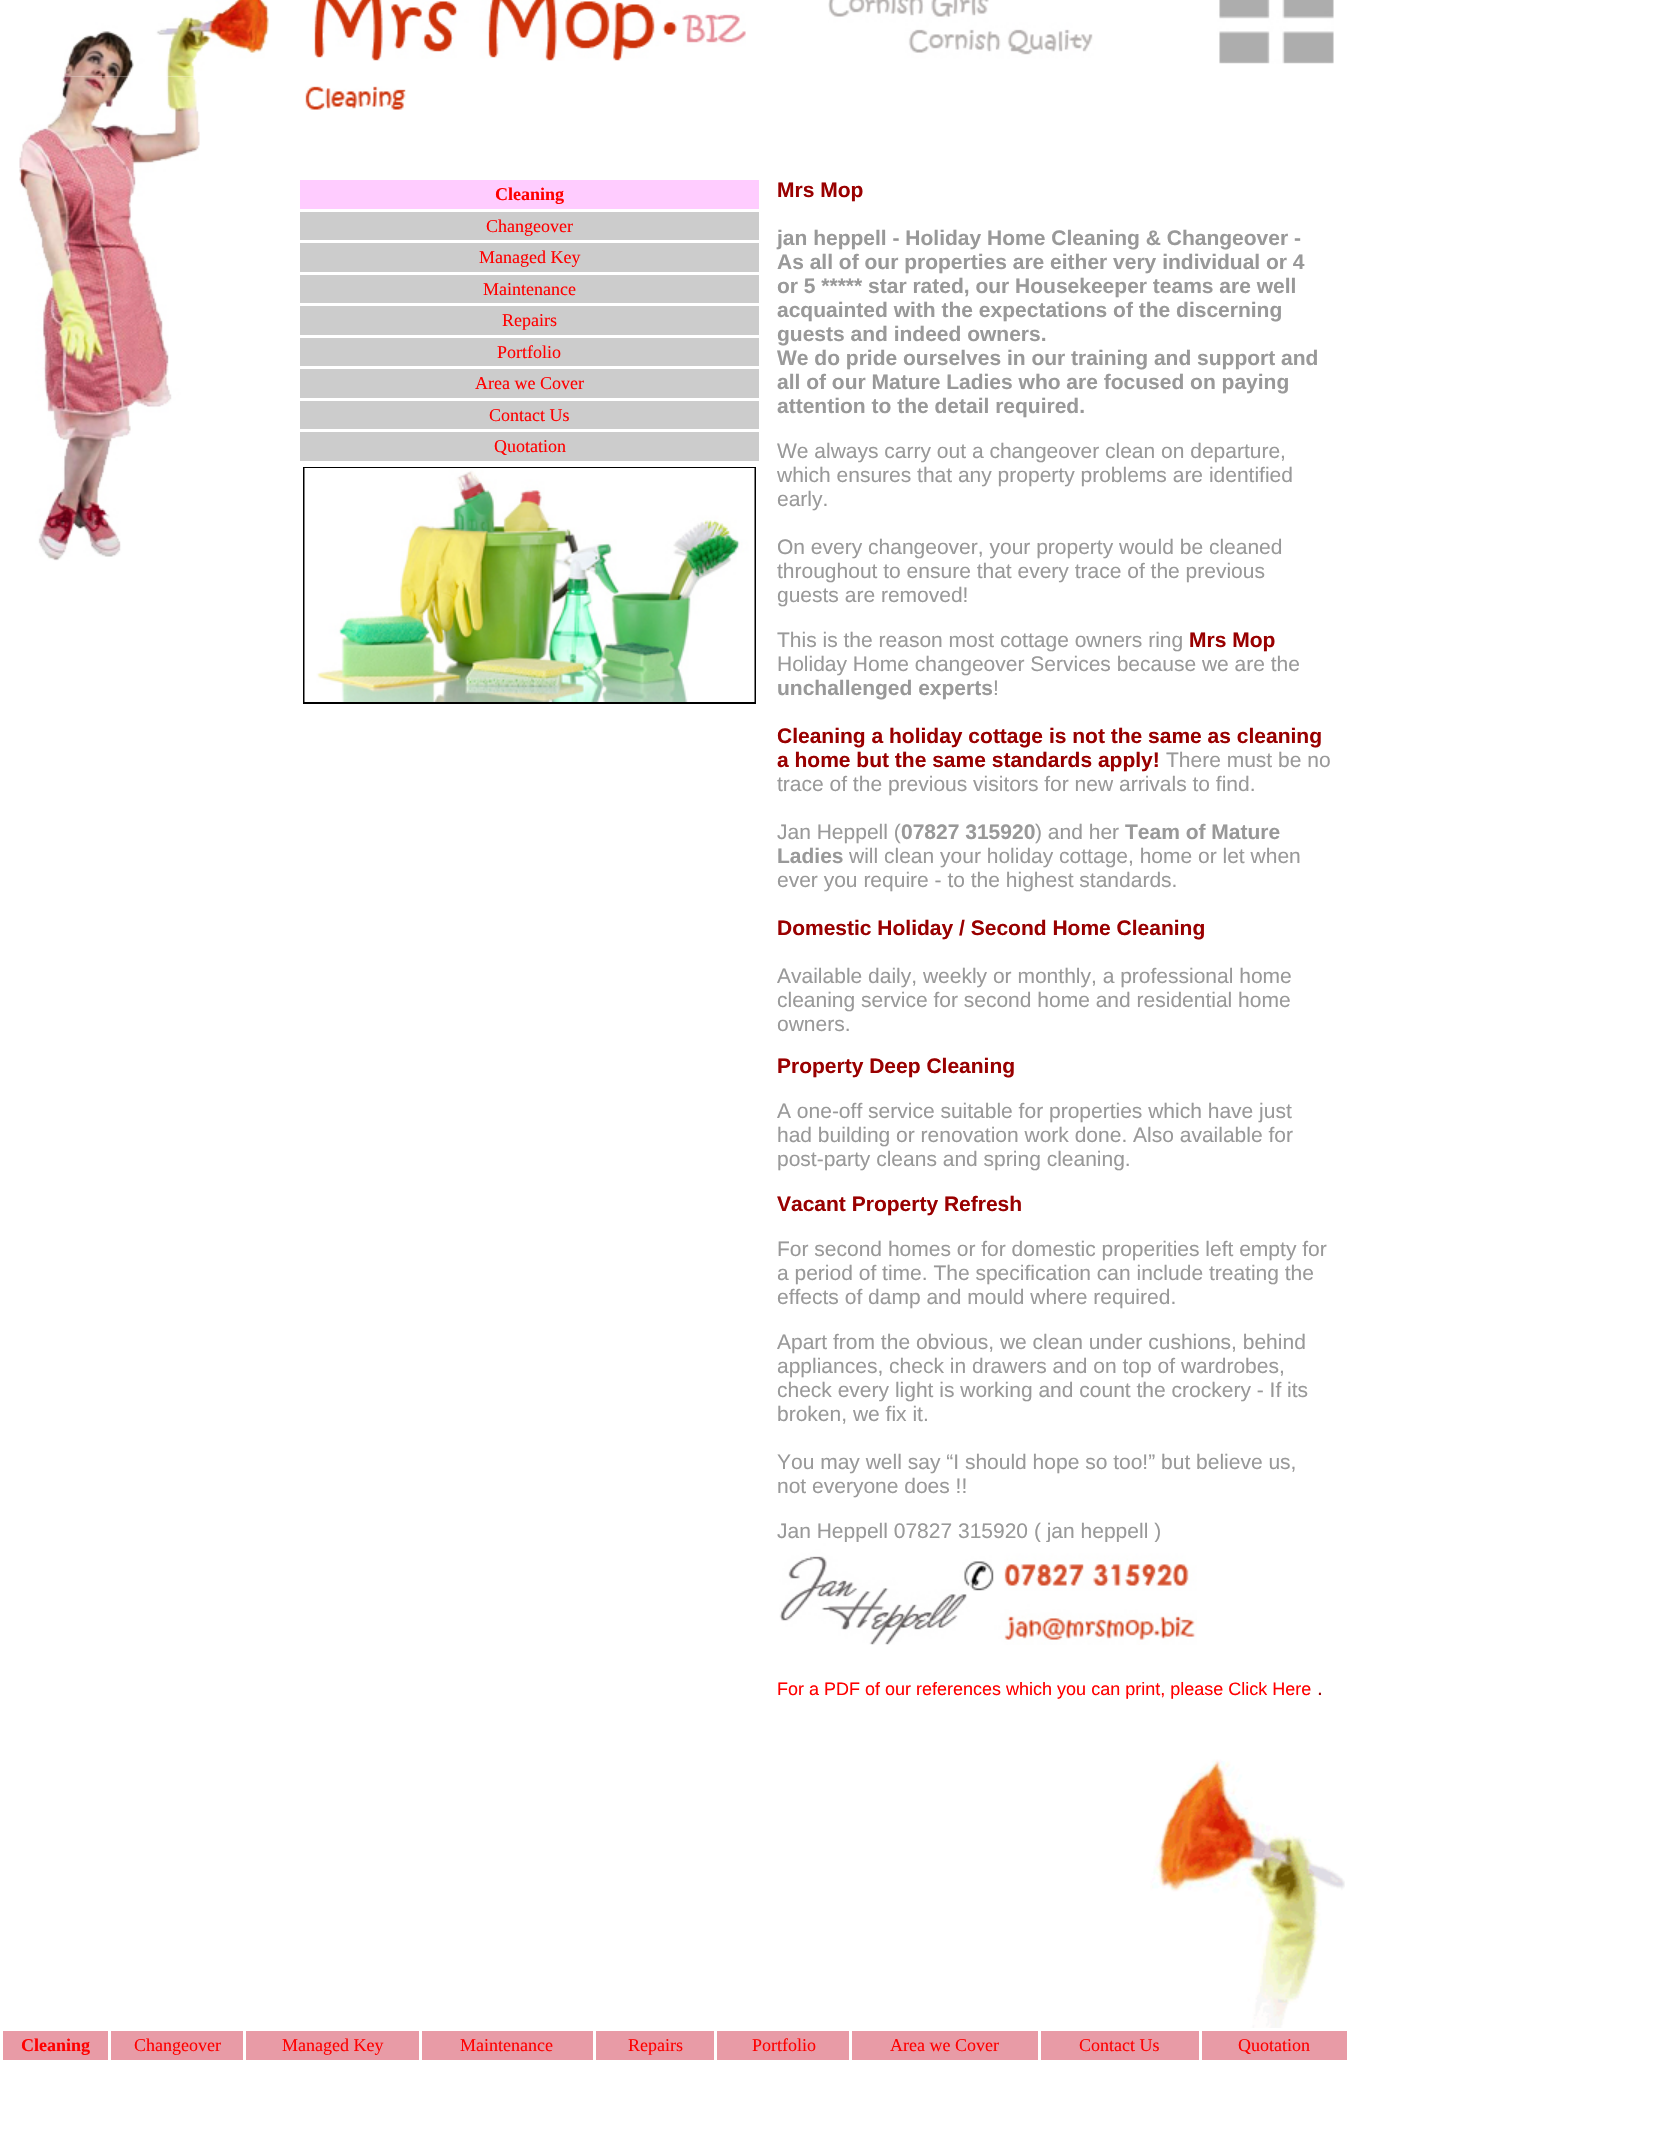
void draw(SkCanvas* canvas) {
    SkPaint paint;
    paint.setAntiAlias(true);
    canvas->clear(0xFFFFFFFF);
    canvas->drawImageRect(SkImages::DeferredFromEncodedData(SkData::MakeFromFileName("img1.png")), SkRect::MakeXYWH(64, 0, 206, 77), SkSamplingOptions());
    canvas->drawImageRect(SkImages::DeferredFromEncodedData(SkData::MakeFromFileName("img2.png")), SkRect::MakeXYWH(314, 0, 432, 61), SkSamplingOptions());
    canvas->drawImageRect(SkImages::DeferredFromEncodedData(SkData::MakeFromFileName("img3.png")), SkRect::MakeXYWH(828, 0, 506, 64), SkSamplingOptions());
    canvas->drawImageRect(SkImages::DeferredFromEncodedData(SkData::MakeFromFileName("img4.png")), SkRect::MakeXYWH(19, 76, 181, 485), SkSamplingOptions());
    canvas->drawImageRect(SkImages::DeferredFromEncodedData(SkData::MakeFromFileName("img5.png")), SkRect::MakeXYWH(305, 86, 101, 24), SkSamplingOptions());
    paint.setColor(0xFFFFCCFF);
    canvas->drawRect(SkRect::MakeXYWH(300, 180, 459, 29), paint);
    SkFont font1(fontMgr->matchFamilyStyle("Liberation Serif", SkFontStyle::Bold()), 18);
    font1.setSubpixel(true);
    paint.setColor(0xFFFF0000);
    canvas->drawString("Cleaning", 495, 200, font1, paint);
    paint.setColor(0xFFCCCCCC);
    canvas->drawRect(SkRect::MakeXYWH(300, 212, 459, 28), paint);
    SkFont font2(fontMgr->matchFamilyStyle("Liberation Serif", SkFontStyle::Normal()), 18);
    font2.setSubpixel(true);
    paint.setColor(0xFFFF0000);
    canvas->drawString("Changeover", 486, 232, font2, paint);
    paint.setColor(0xFFCCCCCC);
    canvas->drawRect(SkRect::MakeXYWH(300, 243, 459, 29), paint);
    paint.setColor(0xFFFF0000);
    canvas->drawString("Managed Key", 479, 263, font2, paint);
    paint.setColor(0xFFCCCCCC);
    canvas->drawRect(SkRect::MakeXYWH(300, 275, 459, 28), paint);
    paint.setColor(0xFFFF0000);
    canvas->drawString("Maintenance", 483, 295, font2, paint);
    paint.setColor(0xFFCCCCCC);
    canvas->drawRect(SkRect::MakeXYWH(300, 306, 459, 29), paint);
    paint.setColor(0xFFFF0000);
    canvas->drawString("Repairs", 502, 326, font2, paint);
    paint.setColor(0xFFCCCCCC);
    canvas->drawRect(SkRect::MakeXYWH(300, 338, 459, 28), paint);
    paint.setColor(0xFFFF0000);
    canvas->drawString("Portfolio", 497, 358, font2, paint);
    paint.setColor(0xFFCCCCCC);
    canvas->drawRect(SkRect::MakeXYWH(300, 369, 459, 29), paint);
    paint.setColor(0xFFFF0000);
    canvas->drawString("Area we Cover", 475, 389, font2, paint);
    paint.setColor(0xFFCCCCCC);
    canvas->drawRect(SkRect::MakeXYWH(300, 401, 459, 28), paint);
    paint.setColor(0xFFFF0000);
    canvas->drawString("Contact Us", 489, 421, font2, paint);
    paint.setColor(0xFFCCCCCC);
    canvas->drawRect(SkRect::MakeXYWH(300, 432, 459, 29), paint);
    paint.setColor(0xFFFF0000);
    canvas->drawString("Quotation", 494, 452, font2, paint);
    paint.setStyle(SkPaint::kStroke_Style);
    paint.setStrokeWidth(2);
    paint.setColor(0xFF000000);
    canvas->drawRect(SkRect::MakeXYWH(304, 468, 451, 235), paint);
    canvas->drawImageRect(SkImages::DeferredFromEncodedData(SkData::MakeFromFileName("img6.png")), SkRect::MakeXYWH(304, 468, 451, 234), SkSamplingOptions());
    SkFont font3(fontMgr->matchFamilyStyle("Liberation Sans", SkFontStyle::Bold()), 21);
    font3.setSubpixel(true);
    paint.setStyle(SkPaint::kFill_Style);
    paint.setColor(0xFF990000);
    canvas->drawString("Mrs Mop", 777, 197, font3, paint);
    paint.setColor(0xFF999999);
    canvas->drawString("jan heppell - Holiday Home Cleaning & Changeover -", 777, 245, font3, paint);
    canvas->drawString("As all of our properties are either very individual or 4", 777, 269, font3, paint);
    canvas->drawString("or 5 ***** star rated, our Housekeeper teams are well", 777, 293, font3, paint);
    canvas->drawString("acquainted with the expectations of the discerning", 777, 317, font3, paint);
    canvas->drawString("guests and indeed owners.", 777, 341, font3, paint);
    canvas->drawString("We do pride ourselves in our training and support and", 777, 365, font3, paint);
    canvas->drawString("all of our Mature Ladies who are focused on paying", 777, 389, font3, paint);
    canvas->drawString("attention to the detail required.", 777, 413, font3, paint);
    SkFont font4(fontMgr->matchFamilyStyle("Liberation Sans", SkFontStyle::Normal()), 21);
    font4.setSubpixel(true);
    canvas->drawString("We always carry out a changeover clean on departure,", 777, 458, font4, paint);
    canvas->drawString("which ensures that any property problems are identified", 777, 482, font4, paint);
    canvas->drawString("early.", 777, 506, font4, paint);
    canvas->drawString("On every changeover, your property would be cleaned", 777, 554, font4, paint);
    canvas->drawString("throughout to ensure that every trace of the previous", 777, 578, font4, paint);
    canvas->drawString("guests are removed!", 777, 602, font4, paint);
    canvas->drawString("This is the reason most cottage owners ring", 777, 647, font4, paint);
    paint.setColor(0xFF990000);
    canvas->drawString("Mrs Mop", 1189, 647, font3, paint);
    paint.setColor(0xFF999999);
    canvas->drawString("Holiday Home changeover Services because we are the", 777, 671, font4, paint);
    canvas->drawString("unchallenged experts", 777, 695, font3, paint);
    canvas->drawString("!", 993, 695, font4, paint);
    paint.setColor(0xFF990000);
    canvas->drawString("Cleaning a holiday cottage is not the same as cleaning", 777, 743, font3, paint);
    canvas->drawString("a home but the same standards apply!", 777, 767, font3, paint);
    paint.setColor(0xFF999999);
    canvas->drawString("There must be no", 1166, 767, font4, paint);
    canvas->drawString("trace of the previous visitors for new arrivals to find.", 777, 791, font4, paint);
    canvas->drawString("Jan Heppell (", 777, 839, font4, paint);
    canvas->drawString("07827 315920", 901, 839, font3, paint);
    canvas->drawString(") and her", 1035, 839, font4, paint);
    canvas->drawString("Team of Mature", 1125, 839, font3, paint);
    canvas->drawString("Ladies", 777, 863, font3, paint);
    canvas->drawString("will clean your holiday cottage, home or let when", 849, 863, font4, paint);
    canvas->drawString("ever you require - to the highest standards.", 777, 887, font4, paint);
    paint.setColor(0xFF990000);
    canvas->drawString("Domestic Holiday / Second Home Cleaning", 777, 935, font3, paint);
    paint.setColor(0xFF999999);
    canvas->drawString("Available daily, weekly or monthly, a professional home", 777, 983, font4, paint);
    canvas->drawString("cleaning service for second home and residential home", 777, 1007, font4, paint);
    canvas->drawString("owners.", 777, 1031, font4, paint);
    paint.setColor(0xFF990000);
    canvas->drawString("Property Deep Cleaning", 777, 1073, font3, paint);
    paint.setColor(0xFF999999);
    canvas->drawString("A one-off service suitable for properties which have just", 777, 1118, font4, paint);
    canvas->drawString("had building or renovation work done. Also available for", 777, 1142, font4, paint);
    canvas->drawString("post-party cleans and spring cleaning.", 777, 1166, font4, paint);
    paint.setColor(0xFF990000);
    canvas->drawString("Vacant Property Refresh", 777, 1211, font3, paint);
    paint.setColor(0xFF999999);
    canvas->drawString("For second homes or for domestic properities left empty for", 777, 1256, font4, paint);
    canvas->drawString("a period of time. The specification can include treating the", 777, 1280, font4, paint);
    canvas->drawString("effects of damp and mould where required.", 777, 1304, font4, paint);
    canvas->drawString("Apart from the obvious, we clean under cushions, behind", 777, 1349, font4, paint);
    canvas->drawString("appliances, check in drawers and on top of wardrobes,", 777, 1373, font4, paint);
    canvas->drawString("check every light is working and count the crockery - If its", 777, 1397, font4, paint);
    canvas->drawString("broken, we fix it.", 777, 1421, font4, paint);
    canvas->drawString("You may well say “I should hope so too!” but believe us,", 777, 1469, font4, paint);
    canvas->drawString("not everyone does !!", 777, 1493, font4, paint);
    canvas->drawString("Jan Heppell 07827 315920 ( jan heppell )", 777, 1538, font4, paint);
    canvas->drawImageRect(SkImages::DeferredFromEncodedData(SkData::MakeFromFileName("img7.png")), SkRect::MakeXYWH(779, 1542, 418, 103), SkSamplingOptions());
    SkFont font5(fontMgr->matchFamilyStyle("Liberation Sans", SkFontStyle::Normal()), 18);
    font5.setSubpixel(true);
    paint.setColor(0xFFFF0000);
    canvas->drawString("For a PDF of our references which you can print, please Click Here", 777, 1695, font5, paint);
    paint.setColor(0xFF990000);
    canvas->drawString(".", 1317, 1695, font4, paint);
    canvas->drawImageRect(SkImages::DeferredFromEncodedData(SkData::MakeFromFileName("img8.png")), SkRect::MakeXYWH(1150, 1759, 195, 269), SkSamplingOptions());
    paint.setColor(0xFFE89BA6);
    canvas->drawRect(SkRect::MakeXYWH(3, 2031, 105, 29), paint);
    paint.setColor(0xFFFF0000);
    canvas->drawString("Cleaning", 21, 2051, font1, paint);
    paint.setColor(0xFFE89BA6);
    canvas->drawRect(SkRect::MakeXYWH(111, 2031, 132, 29), paint);
    paint.setColor(0xFFFF0000);
    canvas->drawString("Changeover", 134, 2051, font2, paint);
    paint.setColor(0xFFE89BA6);
    canvas->drawRect(SkRect::MakeXYWH(246, 2031, 173, 29), paint);
    paint.setColor(0xFFFF0000);
    canvas->drawString("Managed Key", 282, 2051, font2, paint);
    paint.setColor(0xFFE89BA6);
    canvas->drawRect(SkRect::MakeXYWH(422, 2031, 171, 29), paint);
    paint.setColor(0xFFFF0000);
    canvas->drawString("Maintenance", 460, 2051, font2, paint);
    paint.setColor(0xFFE89BA6);
    canvas->drawRect(SkRect::MakeXYWH(596, 2031, 118, 29), paint);
    paint.setColor(0xFFFF0000);
    canvas->drawString("Repairs", 628, 2051, font2, paint);
    paint.setColor(0xFFE89BA6);
    canvas->drawRect(SkRect::MakeXYWH(717, 2031, 132, 29), paint);
    paint.setColor(0xFFFF0000);
    canvas->drawString("Portfolio", 752, 2051, font2, paint);
    paint.setColor(0xFFE89BA6);
    canvas->drawRect(SkRect::MakeXYWH(852, 2031, 186, 29), paint);
    paint.setColor(0xFFFF0000);
    canvas->drawString("Area we Cover", 890, 2051, font2, paint);
    paint.setColor(0xFFE89BA6);
    canvas->drawRect(SkRect::MakeXYWH(1041, 2031, 158, 29), paint);
    paint.setColor(0xFFFF0000);
    canvas->drawString("Contact Us", 1079, 2051, font2, paint);
    paint.setColor(0xFFE89BA6);
    canvas->drawRect(SkRect::MakeXYWH(1202, 2031, 145, 29), paint);
    paint.setColor(0xFFFF0000);
    canvas->drawString("Quotation", 1238, 2051, font2, paint);
}
